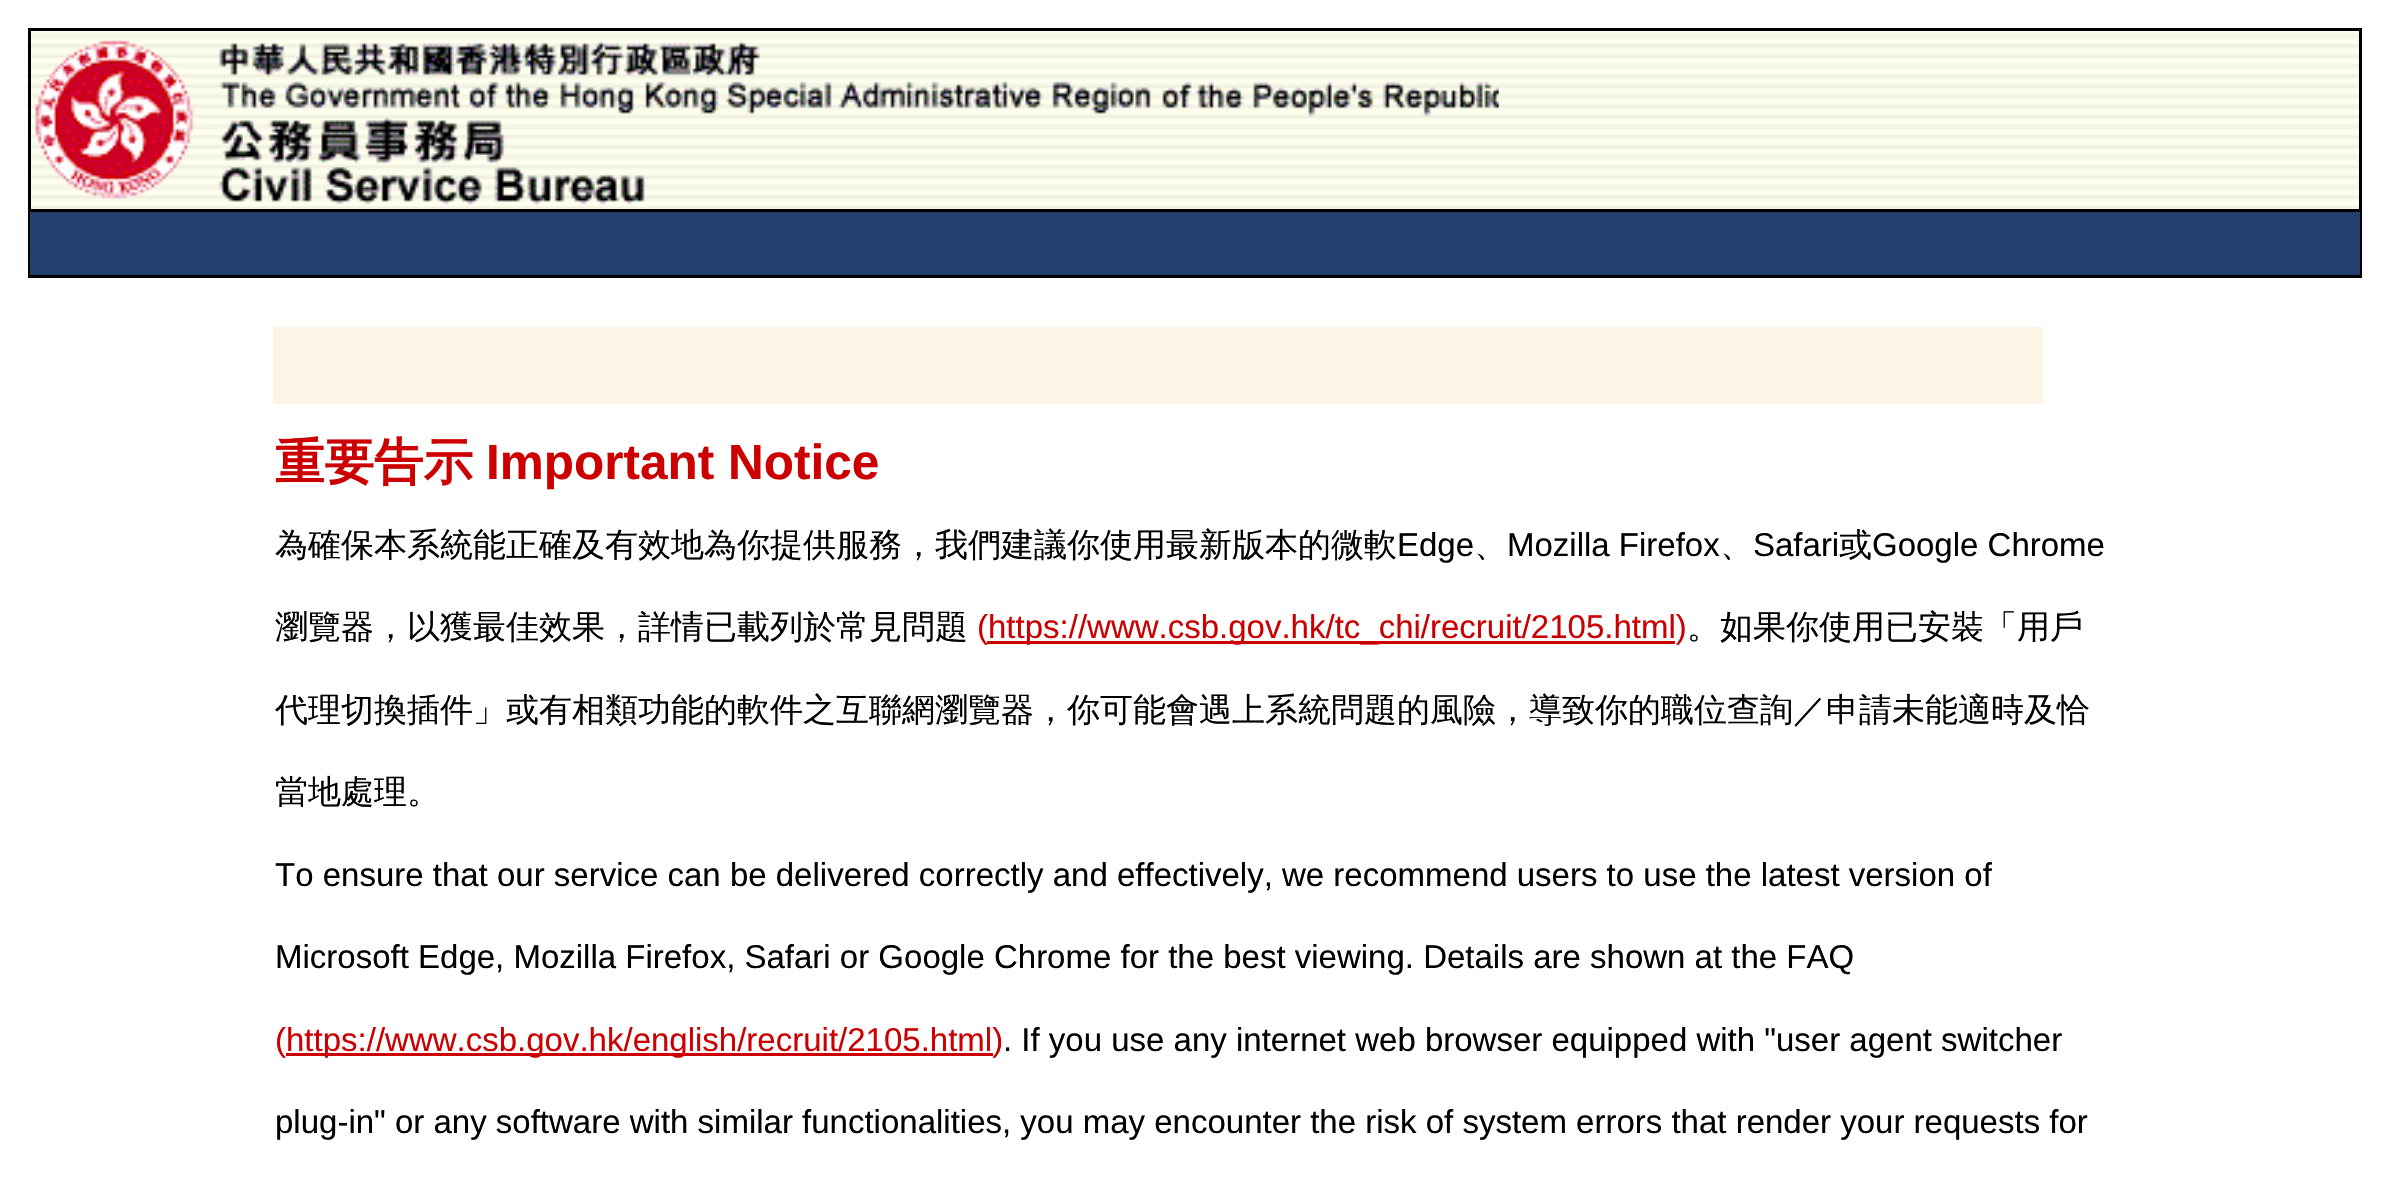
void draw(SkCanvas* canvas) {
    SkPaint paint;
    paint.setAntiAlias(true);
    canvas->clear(0xFFFFFFFF);
    canvas->drawImageRect(SkImages::DeferredFromEncodedData(SkData::MakeFromFileName("img1.png")), SkRect::MakeXYWH(27, 30, 2336, 234), SkSamplingOptions());
    paint.setStyle(SkPaint::kStroke_Style);
    paint.setStrokeWidth(3);
    paint.setColor(0xFF000000);
    canvas->drawRect(SkRect::MakeXYWH(29.5f, 29.5f, 2331, 247), paint);
    canvas->drawImageRect(SkImages::DeferredFromEncodedData(SkData::MakeFromFileName("img2.png")), SkRect::MakeXYWH(35, 40, 1464, 165), SkSamplingOptions());
    paint.setStyle(SkPaint::kFill_Style);
    paint.setColor(0xFF233F6E);
    canvas->drawRect(SkRect::MakeXYWH(30, 212, 2330, 63), paint);
    paint.setColor(0xFF000000);
    canvas->drawRect(SkRect::MakeXYWH(30, 209, 2330, 3), paint);
    paint.setColor(0xFFFCF5E6);
    canvas->drawRect(SkRect::MakeXYWH(273, 327, 1770, 77), paint);
    SkFont font1(fontMgr->matchFamilyStyle("WenQuanYi Zen Hei", SkFontStyle::Bold()), 49.5f);
    font1.setSubpixel(true);
    paint.setColor(0xFFCC0000);
    canvas->drawString("重要告示", 275, 479, font1, paint);
    SkFont font2(fontMgr->matchFamilyStyle("Liberation Sans", SkFontStyle::Bold()), 49.5f);
    font2.setSubpixel(true);
    canvas->drawString("Important Notice", 486, 479, font2, paint);
    SkFont font3(fontMgr->matchFamilyStyle("WenQuanYi Zen Hei", SkFontStyle(500, SkFontStyle::kNormal_Width, SkFontStyle::kUpright_Slant)), 33);
    font3.setSubpixel(true);
    paint.setColor(0xFF000000);
    canvas->drawString("為確保本系統能正確及有效地為你提供服務，我們建議你使用最新版本的微軟", 275, 556, font3, paint);
    SkFont font4(fontMgr->matchFamilyStyle("Liberation Sans", SkFontStyle::Normal()), 33);
    font4.setSubpixel(true);
    canvas->drawString("Edge", 1397, 556, font4, paint);
    canvas->drawString("、", 1474, 556, font3, paint);
    canvas->drawString("Mozilla Firefox", 1507, 556, font4, paint);
    canvas->drawString("、", 1720, 556, font3, paint);
    canvas->drawString("Safari", 1753, 556, font4, paint);
    canvas->drawString("或", 1839, 556, font3, paint);
    canvas->drawString("Google Chrome", 1872, 556, font4, paint);
    canvas->drawString("瀏覽器，以獲最佳效果，詳情已載列於常見問題", 275, 638, font3, paint);
    paint.setColor(0xFFCC0000);
    canvas->drawString("(", 977, 638, font4, paint);
    canvas->drawRect(SkRect::MakeXYWH(987, 641, 688, 3), paint);
    canvas->drawString("https://www.csb.gov.hk/tc_chi/recruit/2105.html)", 988, 638, font4, paint);
    paint.setColor(0xFF000000);
    canvas->drawString("。如果你使用已安裝「用戶", 1687, 638, font3, paint);
    canvas->drawString("代理切換插件」或有相類功能的軟件之互聯網瀏覽器，你可能會遇上系統問題的風險，導致你的職位查詢／申請未能適時及恰", 275, 721, font3, paint);
    canvas->drawString("當地處理。", 275, 803, font3, paint);
    canvas->drawString("To ensure that our service can be delivered correctly and effectively, we recommend users to use the latest version of", 275, 886, font4, paint);
    canvas->drawString("Microsoft Edge, Mozilla Firefox, Safari or Google Chrome for the best viewing. Details are shown at the FAQ", 275, 968, font4, paint);
    paint.setColor(0xFFCC0000);
    canvas->drawString("(", 275, 1051, font4, paint);
    canvas->drawRect(SkRect::MakeXYWH(286, 1053, 707, 3), paint);
    canvas->drawString("https://www.csb.gov.hk/english/recruit/2105.html)", 286, 1051, font4, paint);
    paint.setColor(0xFF000000);
    canvas->drawString(". If you use any internet web browser equipped with \"user agent switcher", 1003, 1051, font4, paint);
    canvas->drawString("plug-in\" or any software with similar functionalities, you may encounter the risk of system errors that render your requests for", 275, 1133, font4, paint);
}
